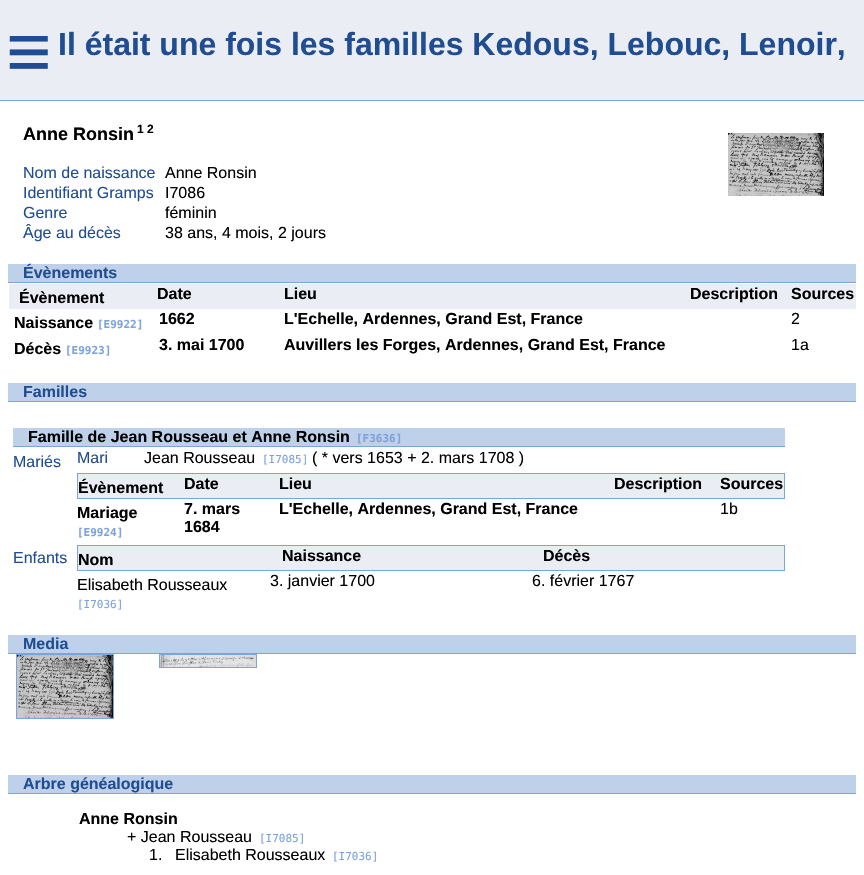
void draw(SkCanvas* canvas) {
    SkPaint paint;
    paint.setAntiAlias(true);
    canvas->clear(0xFFEAEEF4);
    SkFont font1(fontMgr->matchFamilyStyle("Liberation Sans", SkFontStyle::Normal()), 78);
    font1.setSubpixel(true);
    paint.setColor(0xFF204D91);
    canvas->drawString("≡", 6, 78, font1, paint);
    SkFont font2(fontMgr->matchFamilyStyle("Liberation Sans", SkFontStyle::Bold()), 32);
    font2.setSubpixel(true);
    canvas->drawString("Il était une fois les familles Kedous, Lebouc, Lenoir,", 58, 55, font2, paint);
    paint.setColor(0xFFFFFFFF);
    canvas->drawRect(SkRect::MakeXYWH(0, 101, 864, 774), paint);
    paint.setColor(0xFF7CA3DD);
    canvas->drawRect(SkRect::MakeXYWH(0, 100, 864, 1), paint);
    SkFont font3(fontMgr->matchFamilyStyle("Liberation Sans", SkFontStyle::Bold()), 18);
    font3.setSubpixel(true);
    paint.setColor(0xFF000000);
    canvas->drawString("Anne Ronsin", 23, 140, font3, paint);
    SkFont font4(fontMgr->matchFamilyStyle("Liberation Sans", SkFontStyle::Bold()), 12);
    font4.setSubpixel(true);
    canvas->drawString("1 2", 137, 133, font4, paint);
    canvas->drawImageRect(SkImages::DeferredFromEncodedData(SkData::MakeFromFileName("img1.png")), SkRect::MakeXYWH(728, 133, 96, 63), SkSamplingOptions());
    SkFont font5(fontMgr->matchFamilyStyle("Liberation Sans", SkFontStyle::Normal()), 16);
    font5.setSubpixel(true);
    paint.setColor(0xFF204D91);
    canvas->drawString("Nom de naissance", 23, 178, font5, paint);
    paint.setColor(0xFF000000);
    canvas->drawString("Anne Ronsin", 165, 178, font5, paint);
    paint.setColor(0xFF204D91);
    canvas->drawString("Identifiant Gramps", 23, 198, font5, paint);
    paint.setColor(0xFF000000);
    canvas->drawString("I7086", 165, 198, font5, paint);
    paint.setColor(0xFF204D91);
    canvas->drawString("Genre", 23, 218, font5, paint);
    paint.setColor(0xFF000000);
    canvas->drawString("féminin", 165, 218, font5, paint);
    paint.setColor(0xFF204D91);
    canvas->drawString("Âge au décès", 23, 238, font5, paint);
    paint.setColor(0xFF000000);
    canvas->drawString("38 ans, 4 mois, 2 jours", 165, 238, font5, paint);
    paint.setColor(0xFFBFD0EA);
    canvas->drawRect(SkRect::MakeXYWH(8, 264, 848, 18), paint);
    paint.setColor(0xFF7CA3DD);
    canvas->drawRect(SkRect::MakeXYWH(8, 282, 848, 1), paint);
    SkFont font6(fontMgr->matchFamilyStyle("Liberation Sans", SkFontStyle::Bold()), 16);
    font6.setSubpixel(true);
    paint.setColor(0xFF204D91);
    canvas->drawString("Évènements", 23, 278, font6, paint);
    paint.setColor(0xFFEAEEF4);
    canvas->drawRect(SkRect::MakeXYWH(9, 284, 847, 25), paint);
    paint.setColor(0xFF000000);
    canvas->drawString("Évènement", 19, 303, font6, paint);
    canvas->drawString("Date", 157, 299, font6, paint);
    canvas->drawString("Lieu", 284, 299, font6, paint);
    canvas->drawString("Description", 690, 299, font6, paint);
    canvas->drawString("Sources", 791, 299, font6, paint);
    canvas->drawString("Naissance", 14, 328, font6, paint);
    SkFont font7(fontMgr->matchFamilyStyle("DejaVu Sans Mono", SkFontStyle::Bold()), 11);
    font7.setSubpixel(true);
    paint.setColor(0xFF7CA3DD);
    canvas->drawString("[E9922]", 97, 328, font7, paint);
    paint.setColor(0xFF000000);
    canvas->drawString("1662", 159, 324, font6, paint);
    canvas->drawString("L'Echelle, Ardennes, Grand Est, France", 284, 324, font6, paint);
    canvas->drawString("2", 791, 324, font5, paint);
    canvas->drawString("Décès", 14, 354, font6, paint);
    paint.setColor(0xFF7CA3DD);
    canvas->drawString("[E9923]", 65, 354, font7, paint);
    paint.setColor(0xFF000000);
    canvas->drawString("3. mai 1700", 159, 350, font6, paint);
    canvas->drawString("Auvillers les Forges, Ardennes, Grand Est, France", 284, 350, font6, paint);
    canvas->drawString("1a", 791, 350, font5, paint);
    paint.setColor(0xFFBFD0EA);
    canvas->drawRect(SkRect::MakeXYWH(8, 383, 848, 18), paint);
    paint.setColor(0xFF7CA3DD);
    canvas->drawRect(SkRect::MakeXYWH(8, 401, 848, 1), paint);
    paint.setColor(0xFF204D91);
    canvas->drawString("Familles", 23, 397, font6, paint);
    paint.setColor(0xFFBFD0EA);
    canvas->drawRect(SkRect::MakeXYWH(13, 428, 772, 18), paint);
    paint.setColor(0xFF7CA3DD);
    canvas->drawRect(SkRect::MakeXYWH(13, 446, 772, 1), paint);
    paint.setColor(0xFF000000);
    canvas->drawString("Famille de Jean Rousseau et Anne Ronsin", 28, 442, font6, paint);
    paint.setColor(0xFF7CA3DD);
    canvas->drawString("[F3636]", 356, 442, font7, paint);
    paint.setColor(0xFF204D91);
    canvas->drawString("Mariés", 13, 467, font5, paint);
    canvas->drawString("Mari", 77, 463, font5, paint);
    paint.setColor(0xFF000000);
    canvas->drawString("Jean Rousseau", 144, 463, font5, paint);
    SkFont font8(fontMgr->matchFamilyStyle("DejaVu Sans Mono", SkFontStyle::Normal()), 11);
    font8.setSubpixel(true);
    paint.setColor(0xFF7CA3DD);
    canvas->drawString("[I7085]", 262, 463, font8, paint);
    paint.setColor(0xFF000000);
    canvas->drawString("( * vers 1653 + 2. mars 1708 )", 312, 463, font5, paint);
    paint.setColor(0xFFEAEEF4);
    canvas->drawRect(SkRect::MakeXYWH(78, 474, 706, 24), paint);
    paint.setColor(0xFF7CA3DD);
    canvas->drawRect(SkRect::MakeXYWH(77, 473, 708, 1), paint);
    canvas->drawRect(SkRect::MakeXYWH(784, 473, 1, 26), paint);
    canvas->drawRect(SkRect::MakeXYWH(77, 498, 708, 1), paint);
    canvas->drawRect(SkRect::MakeXYWH(77, 473, 1, 26), paint);
    paint.setColor(0xFF000000);
    canvas->drawString("Évènement", 78, 493, font6, paint);
    canvas->drawString("Date", 184, 489, font6, paint);
    canvas->drawString("Lieu", 279, 489, font6, paint);
    canvas->drawString("Description", 614, 489, font6, paint);
    canvas->drawString("Sources", 720, 489, font6, paint);
    canvas->drawString("Mariage", 77, 518, font6, paint);
    paint.setColor(0xFF7CA3DD);
    canvas->drawString("[E9924]", 77, 536, font7, paint);
    paint.setColor(0xFF000000);
    canvas->drawString("7. mars", 184, 514, font6, paint);
    canvas->drawString("1684", 184, 532, font6, paint);
    canvas->drawString("L'Echelle, Ardennes, Grand Est, France", 279, 514, font6, paint);
    canvas->drawString("1b", 720, 514, font5, paint);
    paint.setColor(0xFF204D91);
    canvas->drawString("Enfants", 13, 563, font5, paint);
    paint.setColor(0xFFEAEEF4);
    canvas->drawRect(SkRect::MakeXYWH(78, 546, 706, 24), paint);
    paint.setColor(0xFF7CA3DD);
    canvas->drawRect(SkRect::MakeXYWH(77, 545, 708, 1), paint);
    canvas->drawRect(SkRect::MakeXYWH(784, 545, 1, 26), paint);
    canvas->drawRect(SkRect::MakeXYWH(77, 570, 708, 1), paint);
    canvas->drawRect(SkRect::MakeXYWH(77, 545, 1, 26), paint);
    paint.setColor(0xFF000000);
    canvas->drawString("Nom", 78, 565, font6, paint);
    canvas->drawString("Naissance", 282, 561, font6, paint);
    canvas->drawString("Décès", 543, 561, font6, paint);
    canvas->drawString("Elisabeth Rousseaux", 77, 590, font5, paint);
    paint.setColor(0xFF7CA3DD);
    canvas->drawString("[I7036]", 77, 608, font8, paint);
    paint.setColor(0xFF000000);
    canvas->drawString("3. janvier 1700", 270, 586, font5, paint);
    canvas->drawString("6. février 1767", 532, 586, font5, paint);
    paint.setColor(0xFFBFD0EA);
    canvas->drawRect(SkRect::MakeXYWH(8, 635, 848, 18), paint);
    paint.setColor(0xFF7CA3DD);
    canvas->drawRect(SkRect::MakeXYWH(8, 653, 848, 1), paint);
    paint.setColor(0xFF204D91);
    canvas->drawString("Media", 23, 649, font6, paint);
    paint.setStyle(SkPaint::kStroke_Style);
    paint.setStrokeWidth(1);
    paint.setColor(0xFF7CA3DD);
    canvas->drawRect(SkRect::MakeXYWH(16.5f, 654.5f, 97, 64), paint);
    canvas->drawImageRect(SkImages::DeferredFromEncodedData(SkData::MakeFromFileName("img1.png")), SkRect::MakeXYWH(17, 655, 96, 63), SkSamplingOptions());
    canvas->drawRect(SkRect::MakeXYWH(159.5f, 654.5f, 97, 13), paint);
    canvas->drawImageRect(SkImages::DeferredFromEncodedData(SkData::MakeFromFileName("img2.png")), SkRect::MakeXYWH(160, 655, 96, 12), SkSamplingOptions());
    paint.setStyle(SkPaint::kFill_Style);
    paint.setColor(0xFFBFD0EA);
    canvas->drawRect(SkRect::MakeXYWH(8, 775, 848, 18), paint);
    paint.setColor(0xFF7CA3DD);
    canvas->drawRect(SkRect::MakeXYWH(8, 793, 848, 1), paint);
    paint.setColor(0xFF204D91);
    canvas->drawString("Arbre généalogique", 23, 789, font6, paint);
    paint.setColor(0xFF000000);
    canvas->drawString("Anne Ronsin", 79, 824, font6, paint);
    canvas->drawString("+ Jean Rousseau", 127, 842, font5, paint);
    paint.setColor(0xFF7CA3DD);
    canvas->drawString("[I7085]", 259, 842, font8, paint);
    paint.setColor(0xFF000000);
    canvas->drawString("1.", 149, 860, font5, paint);
    canvas->drawString("Elisabeth Rousseaux", 175, 860, font5, paint);
    paint.setColor(0xFF7CA3DD);
    canvas->drawString("[I7036]", 332, 860, font8, paint);
}
